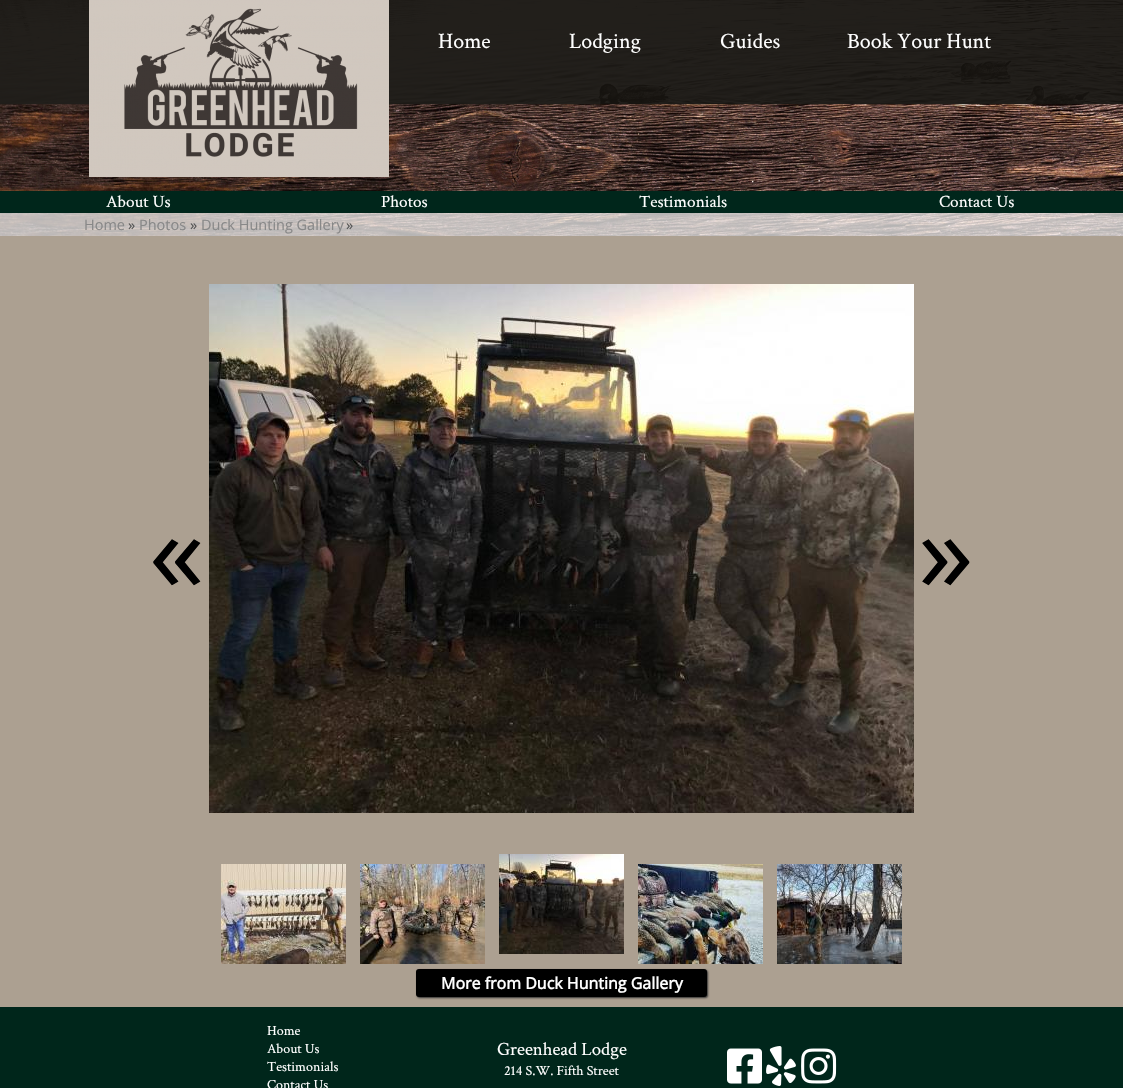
void draw(SkCanvas* canvas) {
    SkPaint paint;
    paint.setAntiAlias(true);
    canvas->clear(0xFFACA091);
    canvas->drawImageRect(SkImages::DeferredFromEncodedData(SkData::MakeFromFileName("img1.png")), SkRect::MakeXYWH(0, 0, 1123, 236), SkSamplingOptions());
    canvas->drawImageRect(SkImages::DeferredFromEncodedData(SkData::MakeFromFileName("img2.png")), SkRect::MakeXYWH(89, 0, 300, 177), SkSamplingOptions());
    SkFont font1(fontMgr->matchFamilyStyle("Crimson Text", SkFontStyle::Normal()), 22);
    font1.setSubpixel(true);
    paint.setColor(0xFFFFFFFF);
    canvas->drawString("Home", 438, 48, font1, paint);
    canvas->drawString("Lodging", 569, 48, font1, paint);
    canvas->drawString("Guides", 720, 48, font1, paint);
    canvas->drawString("Book Your Hunt", 847, 48, font1, paint);
    paint.setColor(0xFF00261B);
    canvas->drawRect(SkRect::MakeXYWH(0, 191, 1123, 22), paint);
    SkFont font2(fontMgr->matchFamilyStyle("Crimson Text", SkFontStyle::Normal()), 17.25f);
    font2.setSubpixel(true);
    paint.setColor(0xFFFFFFFF);
    canvas->drawString("About Us", 106, 207, font2, paint);
    canvas->drawString("Photos", 381, 207, font2, paint);
    canvas->drawString("Testimonials", 639, 207, font2, paint);
    canvas->drawString("Contact Us", 939, 207, font2, paint);
    paint.setColor(0xB3FFFFFF);
    canvas->drawRect(SkRect::MakeXYWH(0, 213, 1123, 23), paint);
    SkFont font3(fontMgr->matchFamilyStyle("Open Sans", SkFontStyle::Normal()), 14.5f);
    font3.setSubpixel(true);
    paint.setColor(0xFF888888);
    canvas->drawString("Home", 84, 230, font3, paint);
    paint.setColor(0xFF555555);
    canvas->drawString("»", 128, 230, font3, paint);
    paint.setColor(0xFF888888);
    canvas->drawString("Photos", 139, 230, font3, paint);
    paint.setColor(0xFF555555);
    canvas->drawString("»", 190, 230, font3, paint);
    paint.setColor(0xFF888888);
    canvas->drawString("Duck Hunting Gallery", 201, 230, font3, paint);
    paint.setColor(0xFF555555);
    canvas->drawString("»", 346, 230, font3, paint);
    SkFont font4(fontMgr->matchFamilyStyle("Open Sans", SkFontStyle::Normal()), 112);
    font4.setSubpixel(true);
    paint.setColor(0xFF000000);
    canvas->drawString("«", 149, 592, font4, paint);
    canvas->drawImageRect(SkImages::DeferredFromEncodedData(SkData::MakeFromFileName("img3.png")), SkRect::MakeXYWH(209, 284, 705, 529), SkSamplingOptions());
    canvas->drawString("»", 918, 592, font4, paint);
    canvas->drawImageRect(SkImages::DeferredFromEncodedData(SkData::MakeFromFileName("img4.png")), SkRect::MakeXYWH(221, 864, 125, 100), SkSamplingOptions());
    canvas->drawImageRect(SkImages::DeferredFromEncodedData(SkData::MakeFromFileName("img5.png")), SkRect::MakeXYWH(360, 864, 125, 100), SkSamplingOptions());
    canvas->drawImageRect(SkImages::DeferredFromEncodedData(SkData::MakeFromFileName("img6.png")), SkRect::MakeXYWH(499, 854, 125, 100), SkSamplingOptions());
    canvas->drawImageRect(SkImages::DeferredFromEncodedData(SkData::MakeFromFileName("img7.png")), SkRect::MakeXYWH(638, 864, 125, 100), SkSamplingOptions());
    canvas->drawImageRect(SkImages::DeferredFromEncodedData(SkData::MakeFromFileName("img8.png")), SkRect::MakeXYWH(777, 864, 125, 100), SkSamplingOptions());
    paint.setColor(0xFF333333);
    paint.setMaskFilter(SkMaskFilter::MakeBlur(kNormal_SkBlurStyle, 1));
    canvas->drawRoundRect(SkRect::MakeXYWH(417, 970, 291, 28), 3, 3, paint);
    paint.setMaskFilter(nullptr);
    paint.setColor(0xFF000000);
    canvas->drawRoundRect(SkRect::MakeXYWH(416, 969, 291, 28), 3, 3, paint);
    SkFont font5(fontMgr->matchFamilyStyle("Open Sans", SkFontStyle::Bold()), 16);
    font5.setSubpixel(true);
    paint.setColor(0xFFFFFFFF);
    canvas->drawString("More from Duck Hunting Gallery", 441, 989, font5, paint);
    paint.setColor(0xFF00261B);
    canvas->drawRect(SkRect::MakeXYWH(0, 1007, 1123, 81), paint);
    SkFont font6(fontMgr->matchFamilyStyle("Crimson Text", SkFontStyle::Normal()), 14);
    font6.setSubpixel(true);
    paint.setColor(0xFFFFFFFF);
    canvas->drawString("Home", 267, 1035, font6, paint);
    canvas->drawString("About Us", 267, 1053, font6, paint);
    canvas->drawString("Testimonials", 267, 1071, font6, paint);
    canvas->drawString("Contact Us", 267, 1089, font6, paint);
    SkFont font7(fontMgr->matchFamilyStyle("Crimson Text", SkFontStyle::Normal()), 18.75f);
    font7.setSubpixel(true);
    canvas->drawString("Greenhead Lodge", 497, 1055, font7, paint);
    canvas->drawString("214 S.W. Fifth Street", 504, 1075, font6, paint);
    canvas->drawImageRect(SkImages::DeferredFromEncodedData(SkData::MakeFromFileName("img9.png")), SkRect::MakeXYWH(727, 1048, 35, 36), SkSamplingOptions());
    canvas->drawImageRect(SkImages::DeferredFromEncodedData(SkData::MakeFromFileName("img10.png")), SkRect::MakeXYWH(766, 1046, 30, 40), SkSamplingOptions());
    canvas->drawImageRect(SkImages::DeferredFromEncodedData(SkData::MakeFromFileName("img11.png")), SkRect::MakeXYWH(801, 1048, 36, 36), SkSamplingOptions());
}
